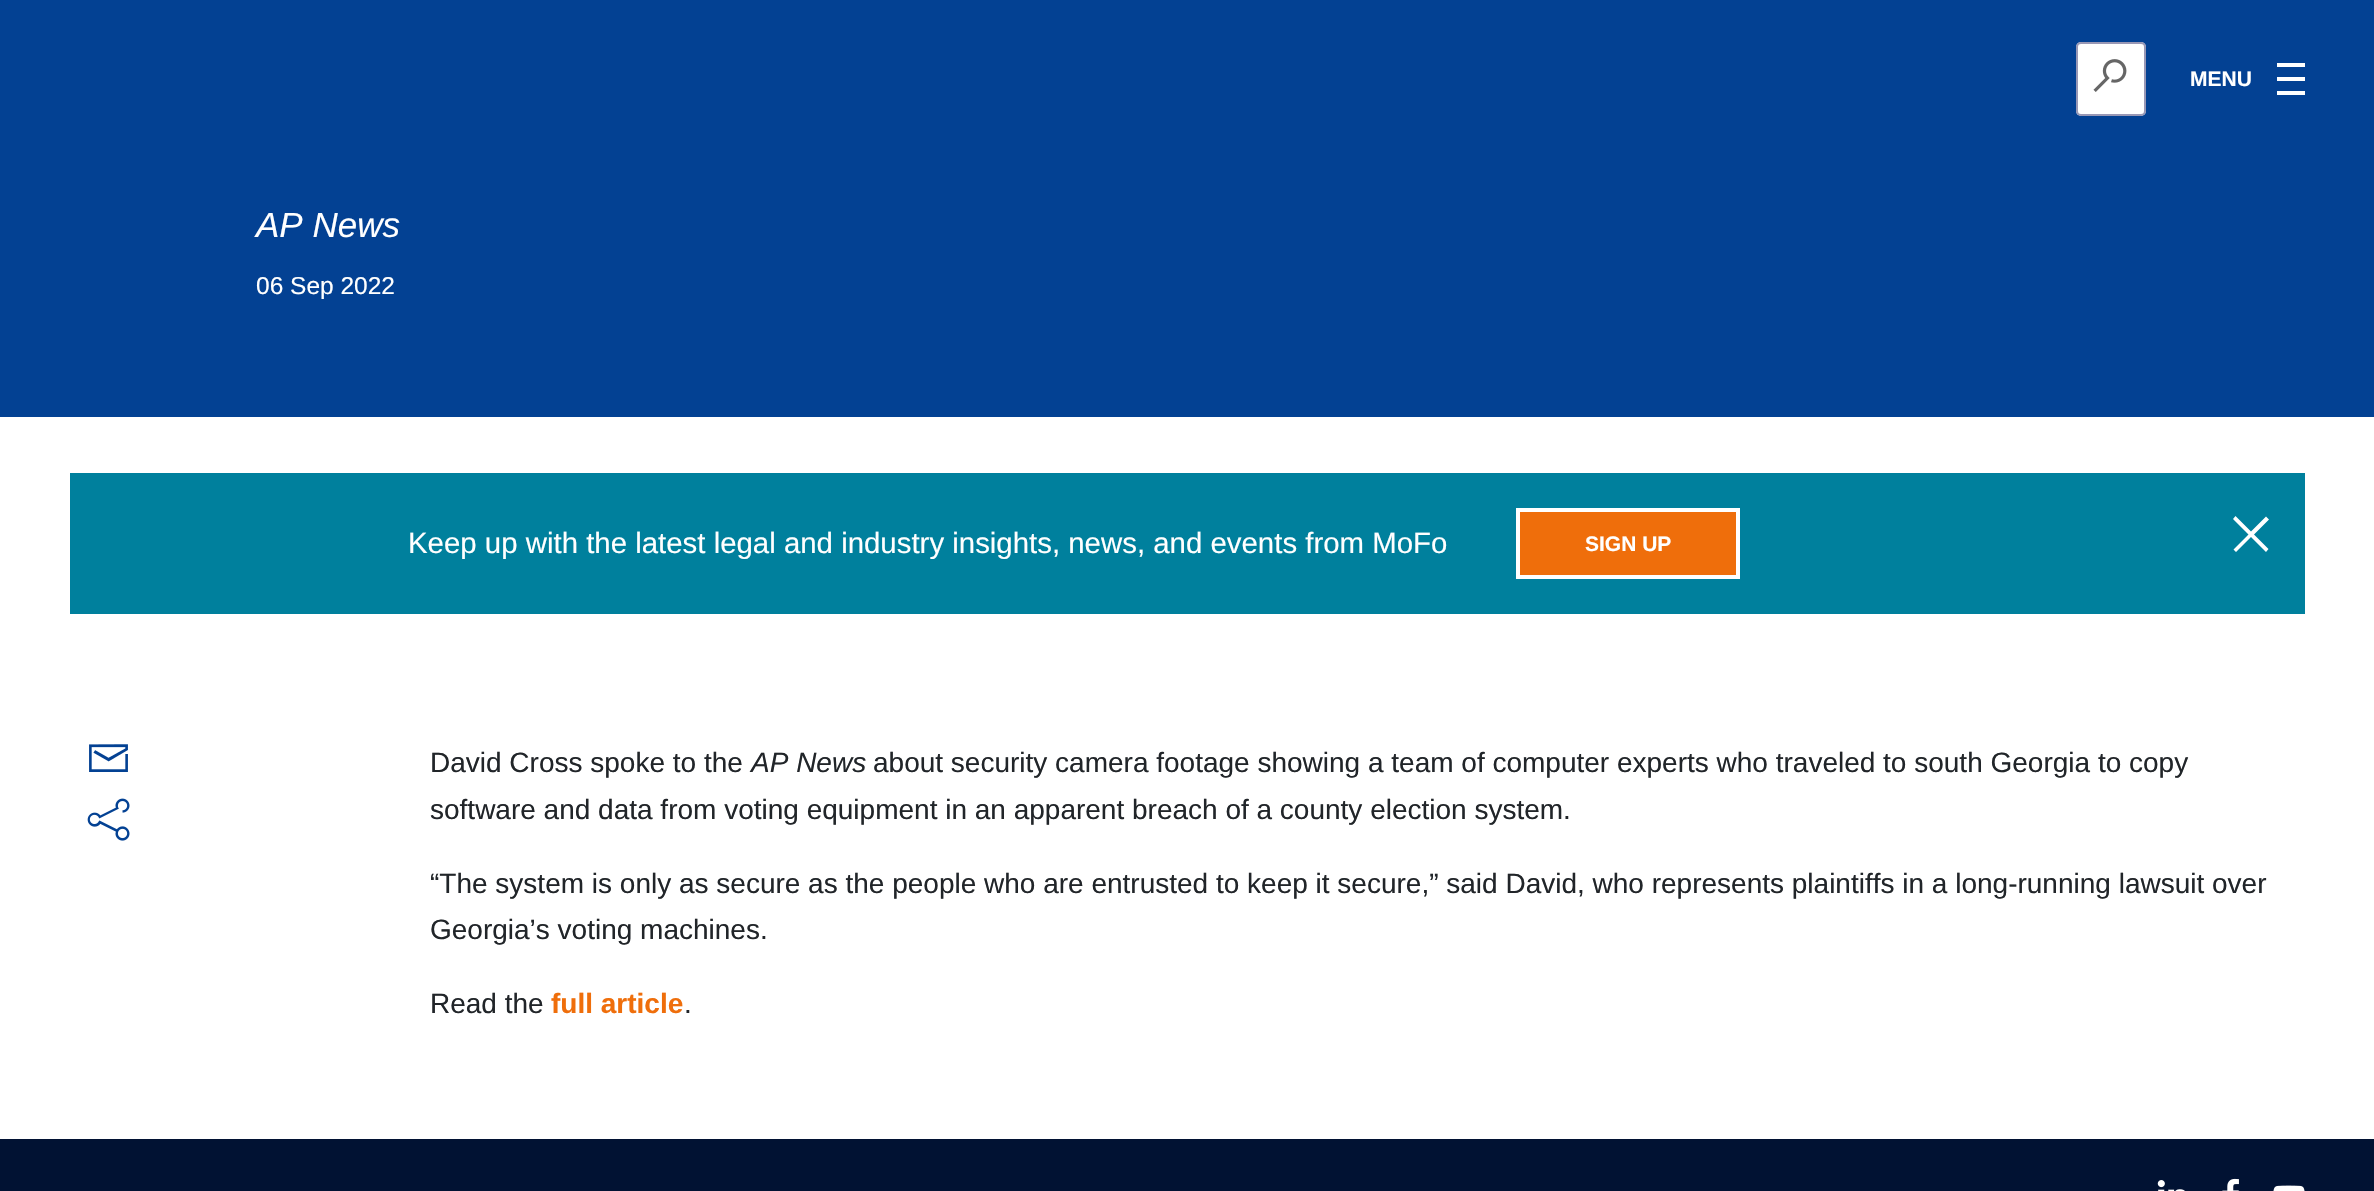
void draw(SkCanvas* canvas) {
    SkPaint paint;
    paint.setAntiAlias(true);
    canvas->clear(0xFFFFFFFF);
    paint.setColor(0xFF034193);
    canvas->drawRect(SkRect::MakeXYWH(0, 0, 2374, 417), paint);
    paint.setColor(0xFFFFFFFF);
    canvas->drawRoundRect(SkRect::MakeXYWH(2076, 42, 70, 74), 5, 5, paint);
    paint.setStyle(SkPaint::kStroke_Style);
    paint.setStrokeWidth(2);
    paint.setColor(0xCC807EA3);
    canvas->drawRoundRect(SkRect::MakeXYWH(2077, 43, 68, 72), 4, 4, paint);
    canvas->drawImageRect(SkImages::DeferredFromEncodedData(SkData::MakeFromFileName("img1.png")), SkRect::MakeXYWH(2093, 59, 34, 33), SkSamplingOptions());
    SkFont font1(fontMgr->matchFamilyStyle("Liberation Sans", SkFontStyle::Bold()), 21);
    font1.setSubpixel(true);
    paint.setStyle(SkPaint::kFill_Style);
    paint.setColor(0xFFFFFFFF);
    canvas->drawString("MENU", 2190, 86, font1, paint);
    canvas->drawRect(SkRect::MakeXYWH(2277, 63, 28, 4), paint);
    canvas->drawRect(SkRect::MakeXYWH(2277, 77, 28, 4), paint);
    canvas->drawRect(SkRect::MakeXYWH(2277, 91, 28, 4), paint);
    SkFont font2(fontMgr->matchFamilyStyle("Liberation Sans", SkFontStyle::Italic()), 35);
    font2.setSubpixel(true);
    canvas->drawString("AP News", 256, 237, font2, paint);
    SkFont font3(fontMgr->matchFamilyStyle("Liberation Sans", SkFontStyle::Normal()), 24.5f);
    font3.setSubpixel(true);
    canvas->drawString("06 Sep 2022", 256, 294, font3, paint);
    paint.setColor(0xFF00809D);
    canvas->drawRect(SkRect::MakeXYWH(70, 473, 2235, 141), paint);
    SkFont font4(fontMgr->matchFamilyStyle("Liberation Sans", SkFontStyle::Normal()), 29.4f);
    font4.setSubpixel(true);
    paint.setColor(0xFFFFFFFF);
    canvas->drawString("Keep up with the latest legal and industry insights, news, and events from MoFo", 408, 553, font4, paint);
    paint.setColor(0xFFEF6E0B);
    canvas->drawRect(SkRect::MakeXYWH(1518, 510, 220, 67), paint);
    paint.setStyle(SkPaint::kStroke_Style);
    paint.setStrokeWidth(4);
    paint.setColor(0xFFFFFFFF);
    canvas->drawRect(SkRect::MakeXYWH(1518, 510, 220, 67), paint);
    paint.setStyle(SkPaint::kFill_Style);
    canvas->drawString("SIGN UP", 1585, 551, font1, paint);
    canvas->drawPath(SkPathBuilder().moveTo(2251, 531.5f).lineTo(2266, 516.5f).lineTo(2269, 519.5f).lineTo(2254, 534.5f).lineTo(2268.5f, 549).lineTo(2266, 552).lineTo(2251, 537).lineTo(2236, 552).lineTo(2233.5f, 549.5f).lineTo(2248.5f, 534.5f).lineTo(2233, 519).lineTo(2235.5f, 516).close().detach(), paint);
    canvas->drawImageRect(SkImages::DeferredFromEncodedData(SkData::MakeFromFileName("img2.png")), SkRect::MakeXYWH(89, 744, 39, 28), SkSamplingOptions());
    canvas->drawImageRect(SkImages::DeferredFromEncodedData(SkData::MakeFromFileName("img3.png")), SkRect::MakeXYWH(87, 798, 43, 43), SkSamplingOptions());
    SkFont font5(fontMgr->matchFamilyStyle("Liberation Sans", SkFontStyle::Normal()), 28);
    font5.setSubpixel(true);
    paint.setColor(0xFF212529);
    canvas->drawString("David Cross spoke to the", 430, 772, font5, paint);
    SkFont font6(fontMgr->matchFamilyStyle("Liberation Sans", SkFontStyle::Italic()), 28);
    font6.setSubpixel(true);
    canvas->drawString("AP News", 751, 772, font6, paint);
    canvas->drawString("about security camera footage showing a team of computer experts who traveled to south Georgia to copy", 873, 772, font5, paint);
    canvas->drawString("software and data from voting equipment in an apparent breach of a county election system.", 430, 819, font5, paint);
    canvas->drawString("“The system is only as secure as the people who are entrusted to keep it secure,” said David, who represents plaintiffs in a long-running lawsuit over", 430, 893, font5, paint);
    canvas->drawString("Georgia’s voting machines.", 430, 939, font5, paint);
    canvas->drawString("Read the", 430, 1013, font5, paint);
    SkFont font7(fontMgr->matchFamilyStyle("Liberation Sans", SkFontStyle::Bold()), 28);
    font7.setSubpixel(true);
    paint.setColor(0xFFEF6E0B);
    canvas->drawString("full article", 551, 1013, font7, paint);
    paint.setColor(0xFF212529);
    canvas->drawString(".", 684, 1013, font5, paint);
    paint.setColor(0xFF011233);
    canvas->drawRect(SkRect::MakeXYWH(0, 1139, 2374, 52), paint);
    canvas->drawImageRect(SkImages::DeferredFromEncodedData(SkData::MakeFromFileName("img4.png")), SkRect::MakeXYWH(2157, 1180, 28, 11), SkSamplingOptions());
    canvas->drawImageRect(SkImages::DeferredFromEncodedData(SkData::MakeFromFileName("img5.png")), SkRect::MakeXYWH(2222, 1178, 17, 13), SkSamplingOptions());
    canvas->drawImageRect(SkImages::DeferredFromEncodedData(SkData::MakeFromFileName("img6.png")), SkRect::MakeXYWH(2273, 1185, 32, 6), SkSamplingOptions());
}
